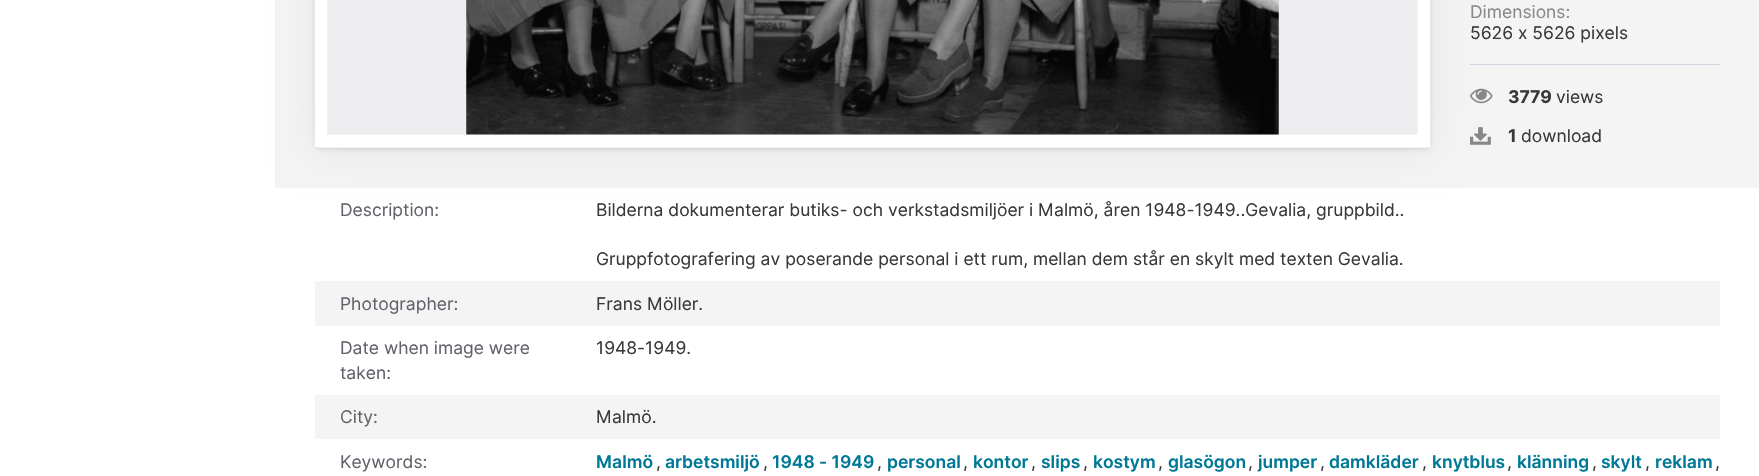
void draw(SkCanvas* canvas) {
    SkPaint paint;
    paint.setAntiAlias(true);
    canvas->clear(0xFFFFFFFF);
    paint.setColor(0xFFF4F4F5);
    canvas->drawRect(SkRect::MakeXYWH(275, 0, 1484, 188), paint);
    paint.setColor(0xFFD3D3DF);
    canvas->drawRect(SkRect::MakeXYWH(1470, 64, 250, 1), paint);
    canvas->drawImageRect(SkImages::DeferredFromEncodedData(SkData::MakeFromFileName("img2.png")), SkRect::MakeXYWH(1470, 88, 23, 16), SkSamplingOptions());
    canvas->drawImageRect(SkImages::DeferredFromEncodedData(SkData::MakeFromFileName("img3.png")), SkRect::MakeXYWH(1470, 127, 21, 18), SkSamplingOptions());
    paint.setColor(0x0F000000);
    paint.setMaskFilter(SkMaskFilter::MakeBlur(kNormal_SkBlurStyle, 22));
    canvas->drawRoundRect(SkRect::MakeXYWH(315, -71, 1115, 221), 5, 5, paint);
    paint.setMaskFilter(nullptr);
    paint.setColor(0x21000000);
    paint.setMaskFilter(SkMaskFilter::MakeBlur(kNormal_SkBlurStyle, 2));
    canvas->drawRoundRect(SkRect::MakeXYWH(315, -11, 1115, 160), 5, 5, paint);
    paint.setMaskFilter(nullptr);
    paint.setColor(0xFFEEEEF1);
    canvas->drawRoundRect(SkRect::MakeXYWH(315, -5, 1115, 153), 5, 5, paint);
    paint.setStyle(SkPaint::kStroke_Style);
    paint.setStrokeWidth(12.5f);
    paint.setColor(0xFFFFFFFF);
    canvas->drawPath(SkPathBuilder().moveTo(321, -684).lineTo(1424, -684).lineTo(1424, 141).lineTo(321, 141).close().detach(), paint);
    canvas->drawImageRect(SkImages::DeferredFromEncodedData(SkData::MakeFromFileName("img1.png")), SkRect::MakeXYWH(466, 0, 813, 135), SkSamplingOptions());
    SkFont font1(fontMgr->matchFamilyStyle("Inter", SkFontStyle::Normal()), 17.5f);
    font1.setSubpixel(true);
    paint.setStyle(SkPaint::kFill_Style);
    paint.setColor(0xFF888888);
    canvas->drawString("Dimensions:", 1470, 18, font1, paint);
    paint.setColor(0xFF39393C);
    canvas->drawString("5626 x 5626 pixels", 1470, 39, font1, paint);
    SkFont font2(fontMgr->matchFamilyStyle("Inter", SkFontStyle::Bold()), 17.5f);
    font2.setSubpixel(true);
    canvas->drawString("3779", 1508, 103, font2, paint);
    canvas->drawString("views", 1556, 103, font1, paint);
    canvas->drawString("1", 1508, 142, font2, paint);
    canvas->drawString("download", 1521, 142, font1, paint);
    paint.setColor(0xFF62626A);
    canvas->drawString("Description:", 340, 216, font1, paint);
    paint.setColor(0xFF39393C);
    canvas->drawString("Bilderna dokumenterar butiks- och verkstadsmiljöer i Malmö, åren 1948-1949..Gevalia, gruppbild..", 596, 216, font1, paint);
    canvas->drawString("Gruppfotografering av poserande personal i ett rum, mellan dem står en skylt med texten Gevalia.", 596, 265, font1, paint);
    paint.setColor(0xFFF4F4F5);
    canvas->drawRect(SkRect::MakeXYWH(315, 281, 1405, 45), paint);
    paint.setColor(0xFF62626A);
    canvas->drawString("Photographer:", 340, 310, font1, paint);
    paint.setColor(0xFF39393C);
    canvas->drawString("Frans Möller.", 596, 310, font1, paint);
    paint.setColor(0xFF62626A);
    canvas->drawString("Date when image were", 340, 354, font1, paint);
    canvas->drawString("taken:", 340, 379, font1, paint);
    paint.setColor(0xFF39393C);
    canvas->drawString("1948-1949.", 596, 354, font1, paint);
    paint.setColor(0xFFF4F4F5);
    canvas->drawRect(SkRect::MakeXYWH(315, 395, 1405, 44), paint);
    paint.setColor(0xFF62626A);
    canvas->drawString("City:", 340, 423, font1, paint);
    paint.setColor(0xFF39393C);
    canvas->drawString("Malmö.", 596, 423, font1, paint);
    paint.setColor(0xFF62626A);
    canvas->drawString("Keywords:", 340, 468, font1, paint);
    SkFont font3(fontMgr->matchFamilyStyle("Inter", SkFontStyle(600, SkFontStyle::kNormal_Width, SkFontStyle::kUpright_Slant)), 17.5f);
    font3.setSubpixel(true);
    paint.setColor(0xFF007896);
    canvas->drawString("Malmö", 596, 468, font3, paint);
    paint.setColor(0xFF39393C);
    canvas->drawString(",", 656, 468, font1, paint);
    paint.setColor(0xFF007896);
    canvas->drawString("arbetsmiljö", 665, 468, font3, paint);
    paint.setColor(0xFF39393C);
    canvas->drawString(",", 763, 468, font1, paint);
    paint.setColor(0xFF007896);
    canvas->drawString("1948 - 1949", 772, 468, font3, paint);
    paint.setColor(0xFF39393C);
    canvas->drawString(",", 877, 468, font1, paint);
    paint.setColor(0xFF007896);
    canvas->drawString("personal", 887, 468, font3, paint);
    paint.setColor(0xFF39393C);
    canvas->drawString(",", 963, 468, font1, paint);
    paint.setColor(0xFF007896);
    canvas->drawString("kontor", 973, 468, font3, paint);
    paint.setColor(0xFF39393C);
    canvas->drawString(",", 1031, 468, font1, paint);
    paint.setColor(0xFF007896);
    canvas->drawString("slips", 1041, 468, font3, paint);
    paint.setColor(0xFF39393C);
    canvas->drawString(",", 1083, 468, font1, paint);
    paint.setColor(0xFF007896);
    canvas->drawString("kostym", 1093, 468, font3, paint);
    paint.setColor(0xFF39393C);
    canvas->drawString(",", 1158, 468, font1, paint);
    paint.setColor(0xFF007896);
    canvas->drawString("glasögon", 1168, 468, font3, paint);
    paint.setColor(0xFF39393C);
    canvas->drawString(",", 1248, 468, font1, paint);
    paint.setColor(0xFF007896);
    canvas->drawString("jumper", 1258, 468, font3, paint);
    paint.setColor(0xFF39393C);
    canvas->drawString(",", 1320, 468, font1, paint);
    paint.setColor(0xFF007896);
    canvas->drawString("damkläder", 1329, 468, font3, paint);
    paint.setColor(0xFF39393C);
    canvas->drawString(",", 1422, 468, font1, paint);
    paint.setColor(0xFF007896);
    canvas->drawString("knytblus", 1432, 468, font3, paint);
    paint.setColor(0xFF39393C);
    canvas->drawString(",", 1507, 468, font1, paint);
    paint.setColor(0xFF007896);
    canvas->drawString("klänning", 1517, 468, font3, paint);
    paint.setColor(0xFF39393C);
    canvas->drawString(",", 1592, 468, font1, paint);
    paint.setColor(0xFF007896);
    canvas->drawString("skylt", 1601, 468, font3, paint);
    paint.setColor(0xFF39393C);
    canvas->drawString(",", 1645, 468, font1, paint);
    paint.setColor(0xFF007896);
    canvas->drawString("reklam", 1655, 468, font3, paint);
    paint.setColor(0xFF39393C);
    canvas->drawString(",", 1715, 468, font1, paint);
}
